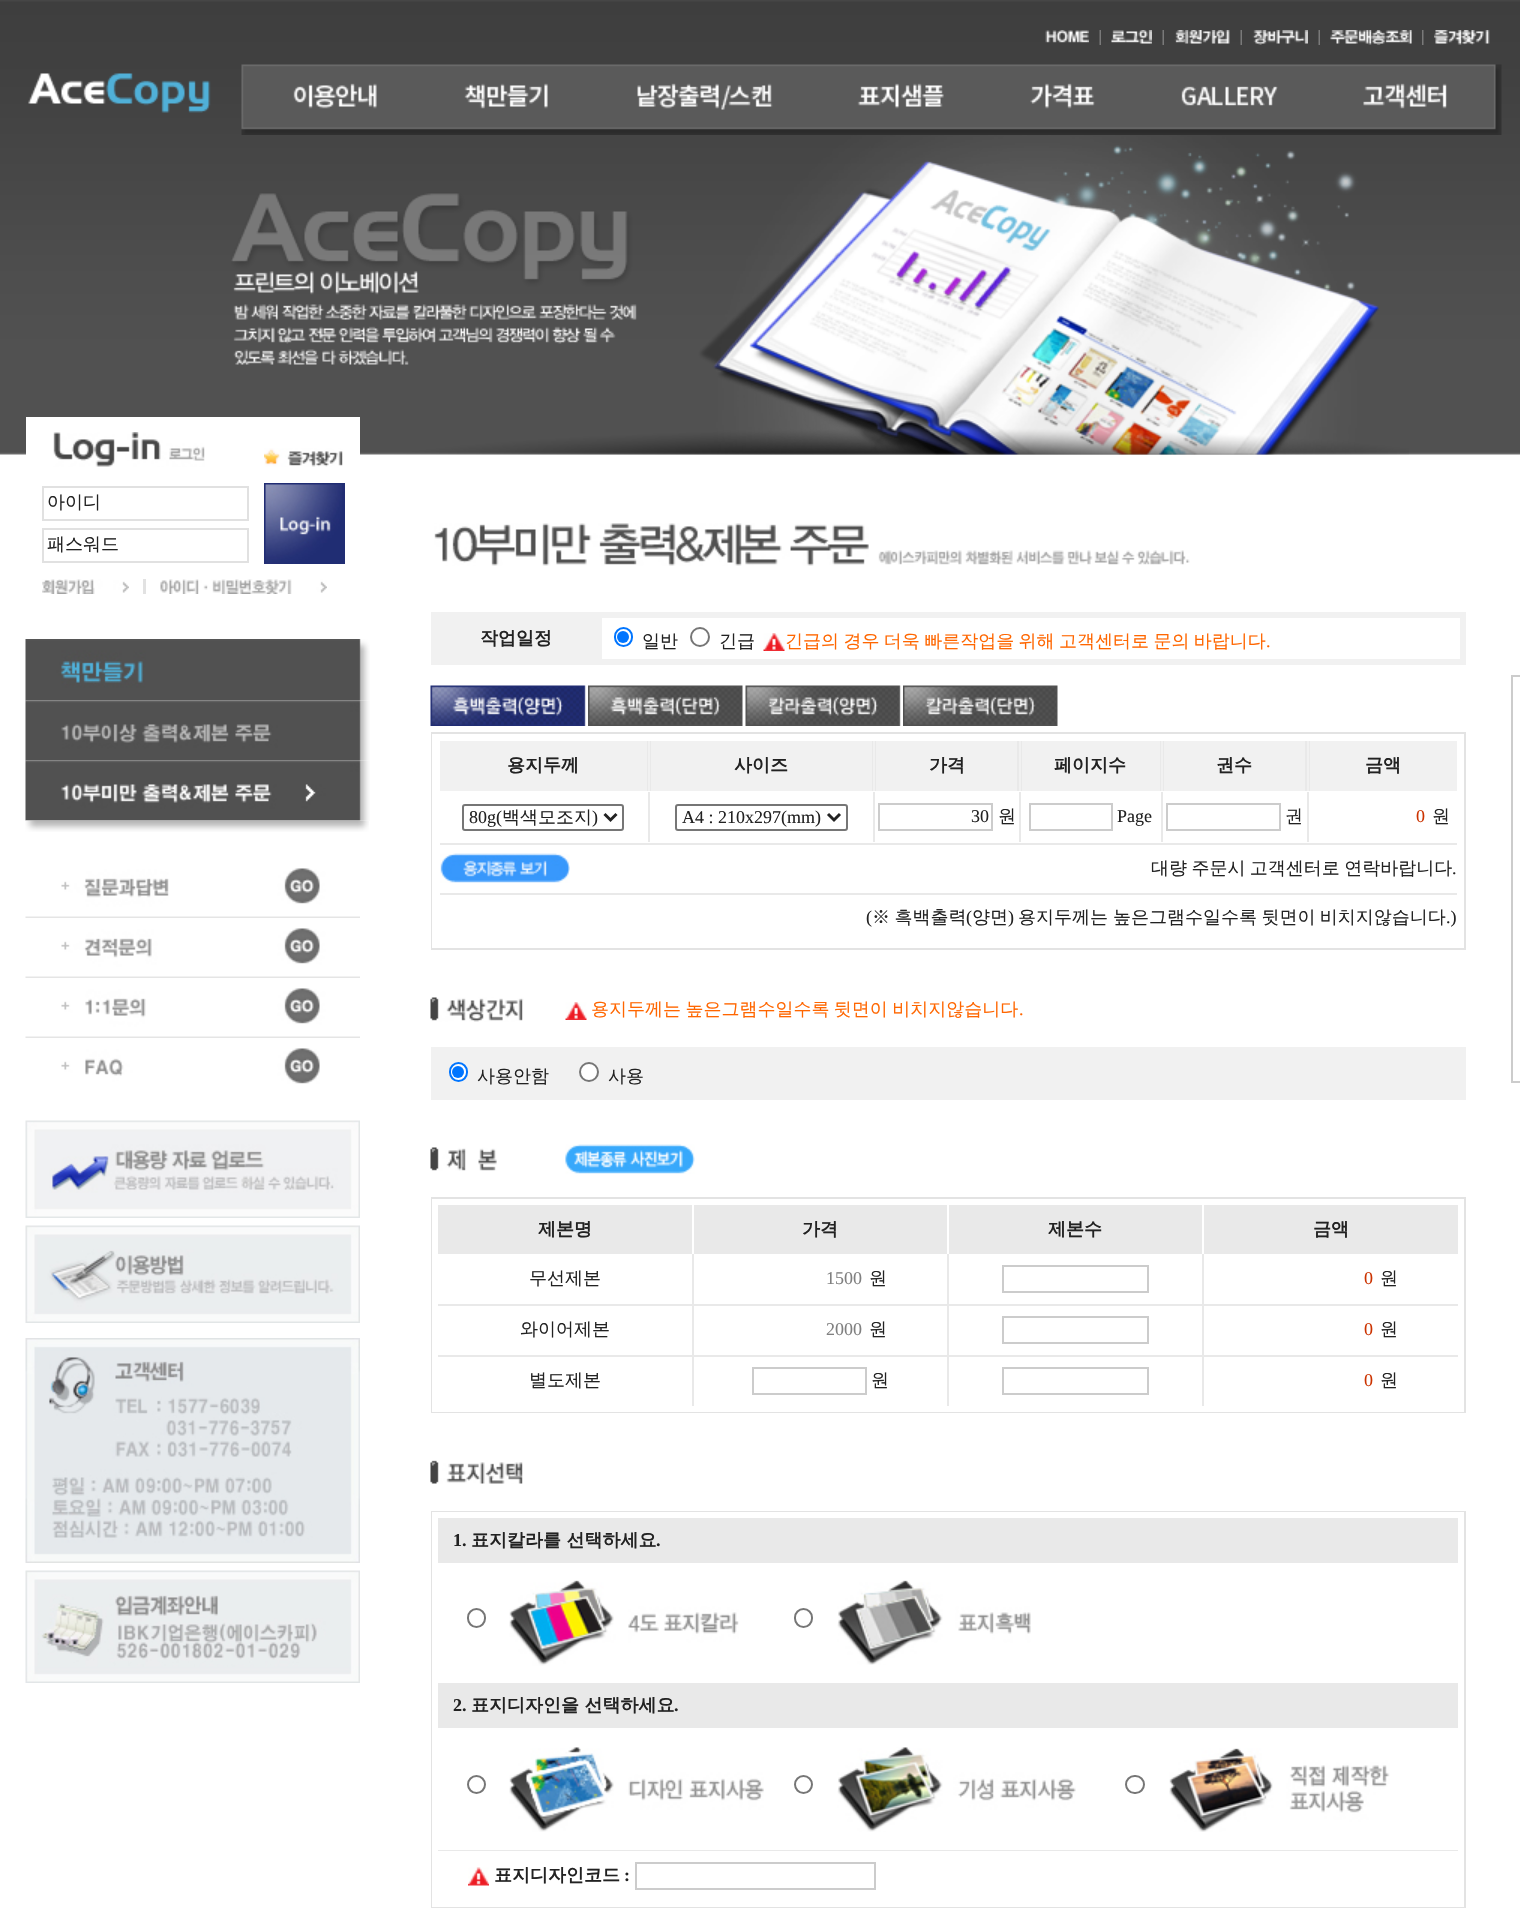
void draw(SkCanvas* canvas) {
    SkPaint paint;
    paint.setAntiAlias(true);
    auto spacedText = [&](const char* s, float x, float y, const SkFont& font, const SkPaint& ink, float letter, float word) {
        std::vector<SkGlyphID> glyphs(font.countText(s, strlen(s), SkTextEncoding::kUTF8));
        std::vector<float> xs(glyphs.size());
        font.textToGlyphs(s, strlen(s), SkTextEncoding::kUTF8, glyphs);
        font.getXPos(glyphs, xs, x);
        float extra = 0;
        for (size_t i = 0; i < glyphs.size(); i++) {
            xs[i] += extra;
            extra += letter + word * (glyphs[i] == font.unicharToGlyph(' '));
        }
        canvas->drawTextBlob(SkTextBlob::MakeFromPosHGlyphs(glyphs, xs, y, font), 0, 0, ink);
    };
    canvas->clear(0xFFFFFFFF);
    canvas->drawImageRect(SkImages::DeferredFromEncodedData(SkData::MakeFromFileName("img1.png")), SkRect::MakeXYWH(0, 0, 1520, 455), SkSamplingOptions());
    canvas->drawImageRect(SkImages::DeferredFromEncodedData(SkData::MakeFromFileName("img2.png")), SkRect::MakeXYWH(1045, 30, 44, 13), SkSamplingOptions());
    canvas->drawImageRect(SkImages::DeferredFromEncodedData(SkData::MakeFromFileName("img3.png")), SkRect::MakeXYWH(1099, 30, 2, 15), SkSamplingOptions());
    canvas->drawImageRect(SkImages::DeferredFromEncodedData(SkData::MakeFromFileName("img4.png")), SkRect::MakeXYWH(1111, 30, 41, 14), SkSamplingOptions());
    canvas->drawImageRect(SkImages::DeferredFromEncodedData(SkData::MakeFromFileName("img3.png")), SkRect::MakeXYWH(1162, 30, 2, 15), SkSamplingOptions());
    canvas->drawImageRect(SkImages::DeferredFromEncodedData(SkData::MakeFromFileName("img5.png")), SkRect::MakeXYWH(1174, 30, 56, 14), SkSamplingOptions());
    canvas->drawImageRect(SkImages::DeferredFromEncodedData(SkData::MakeFromFileName("img3.png")), SkRect::MakeXYWH(1240, 30, 2, 15), SkSamplingOptions());
    canvas->drawImageRect(SkImages::DeferredFromEncodedData(SkData::MakeFromFileName("img6.png")), SkRect::MakeXYWH(1252, 30, 56, 15), SkSamplingOptions());
    canvas->drawImageRect(SkImages::DeferredFromEncodedData(SkData::MakeFromFileName("img3.png")), SkRect::MakeXYWH(1318, 30, 2, 15), SkSamplingOptions());
    canvas->drawImageRect(SkImages::DeferredFromEncodedData(SkData::MakeFromFileName("img7.png")), SkRect::MakeXYWH(1330, 30, 82, 15), SkSamplingOptions());
    canvas->drawImageRect(SkImages::DeferredFromEncodedData(SkData::MakeFromFileName("img8.png")), SkRect::MakeXYWH(1422, 30, 2, 15), SkSamplingOptions());
    canvas->drawImageRect(SkImages::DeferredFromEncodedData(SkData::MakeFromFileName("img9.png")), SkRect::MakeXYWH(1434, 30, 56, 15), SkSamplingOptions());
    canvas->drawImageRect(SkImages::DeferredFromEncodedData(SkData::MakeFromFileName("img10.png")), SkRect::MakeXYWH(28, 73, 183, 40), SkSamplingOptions());
    canvas->drawImageRect(SkImages::DeferredFromEncodedData(SkData::MakeFromFileName("img11.png")), SkRect::MakeXYWH(241, 64, 1261, 71), SkSamplingOptions());
    canvas->drawImageRect(SkImages::DeferredFromEncodedData(SkData::MakeFromFileName("img12.png")), SkRect::MakeXYWH(293, 83, 84, 26), SkSamplingOptions());
    canvas->drawImageRect(SkImages::DeferredFromEncodedData(SkData::MakeFromFileName("img13.png")), SkRect::MakeXYWH(464, 83, 84, 26), SkSamplingOptions());
    canvas->drawImageRect(SkImages::DeferredFromEncodedData(SkData::MakeFromFileName("img14.png")), SkRect::MakeXYWH(637, 83, 136, 27), SkSamplingOptions());
    canvas->drawImageRect(SkImages::DeferredFromEncodedData(SkData::MakeFromFileName("img15.png")), SkRect::MakeXYWH(857, 83, 87, 26), SkSamplingOptions());
    canvas->drawImageRect(SkImages::DeferredFromEncodedData(SkData::MakeFromFileName("img16.png")), SkRect::MakeXYWH(1030, 83, 65, 26), SkSamplingOptions());
    canvas->drawImageRect(SkImages::DeferredFromEncodedData(SkData::MakeFromFileName("img17.png")), SkRect::MakeXYWH(1181, 86, 97, 20), SkSamplingOptions());
    canvas->drawImageRect(SkImages::DeferredFromEncodedData(SkData::MakeFromFileName("img18.png")), SkRect::MakeXYWH(1363, 83, 84, 26), SkSamplingOptions());
    canvas->drawImageRect(SkImages::DeferredFromEncodedData(SkData::MakeFromFileName("img19.png")), SkRect::MakeXYWH(231, 135, 1178, 320), SkSamplingOptions());
    paint.setColor(0xFFFFFFFF);
    canvas->drawRect(SkRect::MakeXYWH(26, 417, 334, 38), paint);
    canvas->drawImageRect(SkImages::DeferredFromEncodedData(SkData::MakeFromFileName("img20.png")), SkRect::MakeXYWH(53, 432, 152, 35), SkSamplingOptions());
    canvas->drawImageRect(SkImages::DeferredFromEncodedData(SkData::MakeFromFileName("img21.png")), SkRect::MakeXYWH(264, 448, 79, 19), SkSamplingOptions());
    paint.setStyle(SkPaint::kStroke_Style);
    paint.setStrokeWidth(2);
    paint.setColor(0xFFE1E1E1);
    canvas->drawRect(SkRect::MakeXYWH(43, 487, 205, 33), paint);
    SkFont font1(fontMgr->matchFamilyStyle("WenQuanYi Zen Hei", SkFontStyle(500, SkFontStyle::kNormal_Width, SkFontStyle::kUpright_Slant)), 18);
    font1.setSubpixel(true);
    paint.setStyle(SkPaint::kFill_Style);
    paint.setColor(0xFF222222);
    canvas->drawString("아이디", 47, 508, font1, paint);
    paint.setStyle(SkPaint::kStroke_Style);
    paint.setColor(0xFFE1E1E1);
    canvas->drawRect(SkRect::MakeXYWH(43, 529, 205, 33), paint);
    paint.setStyle(SkPaint::kFill_Style);
    paint.setColor(0xFF222222);
    canvas->drawString("패스워드", 47, 550, font1, paint);
    canvas->drawImageRect(SkImages::DeferredFromEncodedData(SkData::MakeFromFileName("img22.png")), SkRect::MakeXYWH(264, 483, 81, 81), SkSamplingOptions());
    canvas->drawImageRect(SkImages::DeferredFromEncodedData(SkData::MakeFromFileName("img23.png")), SkRect::MakeXYWH(42, 579, 87, 15), SkSamplingOptions());
    paint.setColor(0xFFE2E2E2);
    canvas->drawRect(SkRect::MakeXYWH(143, 579, 3, 15), paint);
    canvas->drawImageRect(SkImages::DeferredFromEncodedData(SkData::MakeFromFileName("img24.png")), SkRect::MakeXYWH(160, 579, 167, 15), SkSamplingOptions());
    canvas->drawImageRect(SkImages::DeferredFromEncodedData(SkData::MakeFromFileName("img25.png")), SkRect::MakeXYWH(25, 639, 345, 62), SkSamplingOptions());
    canvas->drawImageRect(SkImages::DeferredFromEncodedData(SkData::MakeFromFileName("img26.png")), SkRect::MakeXYWH(25, 700, 345, 61), SkSamplingOptions());
    canvas->drawImageRect(SkImages::DeferredFromEncodedData(SkData::MakeFromFileName("img27.png")), SkRect::MakeXYWH(25, 760, 345, 61), SkSamplingOptions());
    canvas->drawImageRect(SkImages::DeferredFromEncodedData(SkData::MakeFromFileName("img28.png")), SkRect::MakeXYWH(25, 820, 344, 12), SkSamplingOptions());
    canvas->drawImageRect(SkImages::DeferredFromEncodedData(SkData::MakeFromFileName("img29.png")), SkRect::MakeXYWH(25, 868, 335, 50), SkSamplingOptions());
    canvas->drawImageRect(SkImages::DeferredFromEncodedData(SkData::MakeFromFileName("img30.png")), SkRect::MakeXYWH(25, 928, 335, 50), SkSamplingOptions());
    canvas->drawImageRect(SkImages::DeferredFromEncodedData(SkData::MakeFromFileName("img31.png")), SkRect::MakeXYWH(25, 988, 335, 50), SkSamplingOptions());
    canvas->drawImageRect(SkImages::DeferredFromEncodedData(SkData::MakeFromFileName("img32.png")), SkRect::MakeXYWH(61, 1048, 259, 36), SkSamplingOptions());
    canvas->drawImageRect(SkImages::DeferredFromEncodedData(SkData::MakeFromFileName("img33.png")), SkRect::MakeXYWH(25, 1120, 335, 98), SkSamplingOptions());
    canvas->drawImageRect(SkImages::DeferredFromEncodedData(SkData::MakeFromFileName("img34.png")), SkRect::MakeXYWH(25, 1225, 335, 98), SkSamplingOptions());
    canvas->drawImageRect(SkImages::DeferredFromEncodedData(SkData::MakeFromFileName("img35.png")), SkRect::MakeXYWH(25, 1338, 335, 225), SkSamplingOptions());
    canvas->drawImageRect(SkImages::DeferredFromEncodedData(SkData::MakeFromFileName("img36.png")), SkRect::MakeXYWH(25, 1570, 335, 113), SkSamplingOptions());
    canvas->drawImageRect(SkImages::DeferredFromEncodedData(SkData::MakeFromFileName("img37.png")), SkRect::MakeXYWH(434, 523, 435, 43), SkSamplingOptions());
    canvas->drawImageRect(SkImages::DeferredFromEncodedData(SkData::MakeFromFileName("img38.png")), SkRect::MakeXYWH(878, 550, 312, 15), SkSamplingOptions());
    paint.setColor(0xFFF1F1F1);
    canvas->drawRect(SkRect::MakeXYWH(431, 612, 1035, 53), paint);
    SkFont font2(fontMgr->matchFamilyStyle("WenQuanYi Zen Hei", SkFontStyle::Bold()), 18);
    font2.setSubpixel(true);
    paint.setColor(0xFF222222);
    canvas->drawString("작업일정", 480, 644, font2, paint);
    paint.setColor(0xFFFFFFFF);
    canvas->drawRect(SkRect::MakeXYWH(602, 618, 858, 41), paint);
    paint.setStyle(SkPaint::kStroke_Style);
    paint.setColor(0xFF0075FF);
    canvas->drawRoundRect(SkRect::MakeXYWH(615, 628, 17, 18), 8.5f, 8.5f, paint);
    paint.setStyle(SkPaint::kFill_Style);
    canvas->drawCircle(623, 637, 6, paint);
    paint.setColor(0xFF222222);
    canvas->drawString("일반", 642, 647, font1, paint);
    paint.setStyle(SkPaint::kStroke_Style);
    paint.setColor(0xFF767676);
    canvas->drawCircle(700, 637, 9, paint);
    paint.setStyle(SkPaint::kFill_Style);
    paint.setColor(0xFF222222);
    canvas->drawString("긴급", 719, 647, font1, paint);
    canvas->drawImageRect(SkImages::DeferredFromEncodedData(SkData::MakeFromFileName("img39.png")), SkRect::MakeXYWH(763, 633, 22, 18), SkSamplingOptions());
    paint.setColor(0xFFFF6600);
    spacedText("긴급의 경우 더욱 빠른작업을 위해 고객센터로 문의 바랍니다", 785, 647, font1, paint, 0, -1);
    SkFont font3(fontMgr->matchFamilyStyle("Liberation Serif", SkFontStyle::Normal()), 18);
    font3.setSubpixel(true);
    canvas->drawString(".", 1266, 647, font3, paint);
    canvas->drawImageRect(SkImages::DeferredFromEncodedData(SkData::MakeFromFileName("img40.png")), SkRect::MakeXYWH(430, 685, 156, 41), SkSamplingOptions());
    canvas->drawImageRect(SkImages::DeferredFromEncodedData(SkData::MakeFromFileName("img41.png")), SkRect::MakeXYWH(588, 685, 155, 41), SkSamplingOptions());
    canvas->drawImageRect(SkImages::DeferredFromEncodedData(SkData::MakeFromFileName("img42.png")), SkRect::MakeXYWH(745, 685, 156, 41), SkSamplingOptions());
    canvas->drawImageRect(SkImages::DeferredFromEncodedData(SkData::MakeFromFileName("img43.png")), SkRect::MakeXYWH(903, 685, 155, 41), SkSamplingOptions());
    paint.setColor(0xFFE3E3E3);
    canvas->drawRect(SkRect::MakeXYWH(431, 732, 1035, 218), paint);
    paint.setColor(0xFFFFFFFF);
    canvas->drawRect(SkRect::MakeXYWH(432, 734, 1032, 214), paint);
    paint.setColor(0xFFE9E9E9);
    canvas->drawRect(SkRect::MakeXYWH(647, 741, 663, 50), paint);
    paint.setColor(0xFFF1F1F1);
    canvas->drawRect(SkRect::MakeXYWH(440, 741, 207, 50), paint);
    paint.setColor(0xFF222222);
    canvas->drawString("용지두께", 507, 771, font2, paint);
    paint.setColor(0xFFF1F1F1);
    canvas->drawRect(SkRect::MakeXYWH(648, 741, 2, 50), paint);
    canvas->drawRect(SkRect::MakeXYWH(651, 741, 221, 50), paint);
    paint.setColor(0xFF222222);
    canvas->drawString("사이즈", 734, 771, font2, paint);
    paint.setColor(0xFFF1F1F1);
    canvas->drawRect(SkRect::MakeXYWH(873, 741, 2, 50), paint);
    canvas->drawRect(SkRect::MakeXYWH(876, 741, 141, 50), paint);
    paint.setColor(0xFF222222);
    canvas->drawString("가격", 929, 771, font2, paint);
    paint.setColor(0xFFF1F1F1);
    canvas->drawRect(SkRect::MakeXYWH(1019, 741, 2, 50), paint);
    canvas->drawRect(SkRect::MakeXYWH(1022, 741, 138, 50), paint);
    paint.setColor(0xFF222222);
    canvas->drawString("페이지수", 1054, 771, font2, paint);
    paint.setColor(0xFFF1F1F1);
    canvas->drawRect(SkRect::MakeXYWH(1161, 741, 2, 50), paint);
    canvas->drawRect(SkRect::MakeXYWH(1164, 741, 141, 50), paint);
    paint.setColor(0xFF222222);
    canvas->drawString("권수", 1216, 771, font2, paint);
    paint.setColor(0xFFF1F1F1);
    canvas->drawRect(SkRect::MakeXYWH(1307, 741, 2, 50), paint);
    canvas->drawRect(SkRect::MakeXYWH(1310, 741, 147, 50), paint);
    paint.setColor(0xFF222222);
    canvas->drawString("금액", 1365, 771, font2, paint);
    paint.setStyle(SkPaint::kStroke_Style);
    paint.setColor(0xFF767676);
    canvas->drawRoundRect(SkRect::MakeXYWH(463, 805, 160, 25), 2, 2, paint);
    paint.setStrokeWidth(3);
    paint.setColor(0xFF222222);
    canvas->drawPath(SkPathBuilder().moveTo(604.5f, 814).lineTo(610.5f, 820).lineTo(616.5f, 814).detach(), paint);
    paint.setStyle(SkPaint::kFill_Style);
    canvas->drawString("80g(", 469, 823, font3, paint);
    canvas->drawString("백색모조지", 502, 823, font1, paint);
    canvas->drawString(")", 592, 823, font3, paint);
    paint.setColor(0xFFE9E9E9);
    canvas->drawRect(SkRect::MakeXYWH(648, 792, 2, 50), paint);
    paint.setStyle(SkPaint::kStroke_Style);
    paint.setStrokeWidth(2);
    paint.setColor(0xFF767676);
    canvas->drawRoundRect(SkRect::MakeXYWH(676, 805, 171, 25), 2, 2, paint);
    paint.setStrokeWidth(3);
    paint.setColor(0xFF222222);
    canvas->drawPath(SkPathBuilder().moveTo(828, 814).lineTo(834, 820).lineTo(840, 814).detach(), paint);
    paint.setStyle(SkPaint::kFill_Style);
    canvas->drawString("A4 : 210x297(mm)", 682, 823, font3, paint);
    paint.setColor(0xFFE9E9E9);
    canvas->drawRect(SkRect::MakeXYWH(873, 792, 2, 50), paint);
    paint.setStyle(SkPaint::kStroke_Style);
    paint.setStrokeWidth(2);
    paint.setColor(0xFFCCCCCC);
    canvas->drawRect(SkRect::MakeXYWH(879, 804, 113, 26), paint);
    paint.setStyle(SkPaint::kFill_Style);
    paint.setColor(0xFF222222);
    canvas->drawString("30", 971, 822, font3, paint);
    canvas->drawString("원", 998, 822, font1, paint);
    paint.setColor(0xFFE9E9E9);
    canvas->drawRect(SkRect::MakeXYWH(1019, 792, 2, 50), paint);
    paint.setStyle(SkPaint::kStroke_Style);
    paint.setColor(0xFFCCCCCC);
    canvas->drawRect(SkRect::MakeXYWH(1030, 804, 82, 26), paint);
    paint.setStyle(SkPaint::kFill_Style);
    paint.setColor(0xFF222222);
    canvas->drawString("Page", 1117, 822, font3, paint);
    paint.setColor(0xFFE9E9E9);
    canvas->drawRect(SkRect::MakeXYWH(1161, 792, 2, 50), paint);
    paint.setStyle(SkPaint::kStroke_Style);
    paint.setColor(0xFFCCCCCC);
    canvas->drawRect(SkRect::MakeXYWH(1167, 804, 113, 26), paint);
    paint.setStyle(SkPaint::kFill_Style);
    paint.setColor(0xFF222222);
    canvas->drawString("권", 1285, 822, font1, paint);
    paint.setColor(0xFFE9E9E9);
    canvas->drawRect(SkRect::MakeXYWH(1307, 792, 2, 50), paint);
    paint.setColor(0xFFCC3300);
    canvas->drawString("0", 1416, 822, font3, paint);
    paint.setColor(0xFF222222);
    canvas->drawString("원", 1432, 822, font1, paint);
    paint.setColor(0xFFE9E9E9);
    canvas->drawRect(SkRect::MakeXYWH(440, 843, 1017, 2), paint);
    canvas->drawImageRect(SkImages::DeferredFromEncodedData(SkData::MakeFromFileName("img44.png")), SkRect::MakeXYWH(440, 853, 130, 30), SkSamplingOptions());
    paint.setColor(0xFF222222);
    spacedText("대량 주문시 고객센터로 연락바랍니다", 1151, 874, font1, paint, 0, -1);
    canvas->drawString(".", 1452, 874, font3, paint);
    paint.setColor(0xFFE9E9E9);
    canvas->drawRect(SkRect::MakeXYWH(440, 893, 1017, 2), paint);
    paint.setColor(0xFF222222);
    canvas->drawString("(", 866, 923, font3, paint);
    spacedText("※ 흑백출력", 872, 923, font1, paint, 0, -1);
    canvas->drawString("(", 966, 923, font3, paint);
    canvas->drawString("양면", 972, 923, font1, paint);
    canvas->drawString(")", 1008, 923, font3, paint);
    canvas->drawString("용지두께는", 1018, 923, font1, paint);
    spacedText("높은그램수일수록 뒷면이 비치지않습니다", 1113, 923, font1, paint, 0, -1);
    canvas->drawString(".)", 1446, 923, font3, paint);
    canvas->drawImageRect(SkImages::DeferredFromEncodedData(SkData::MakeFromFileName("img45.png")), SkRect::MakeXYWH(430, 997, 94, 25), SkSamplingOptions());
    canvas->drawImageRect(SkImages::DeferredFromEncodedData(SkData::MakeFromFileName("img46.png")), SkRect::MakeXYWH(565, 1002, 22, 18), SkSamplingOptions());
    paint.setColor(0xFFFF6600);
    spacedText("용지두께는 높은그램수일수록 뒷면이 비치지않습니다", 591, 1015, font1, paint, 0, -1);
    canvas->drawString(".", 1019, 1015, font3, paint);
    paint.setColor(0xFFF1F1F1);
    canvas->drawRect(SkRect::MakeXYWH(431, 1047, 1035, 53), paint);
    paint.setColor(0xFFFFFFFF);
    canvas->drawRoundRect(SkRect::MakeXYWH(450, 1063, 17, 18), 8.5f, 8.5f, paint);
    paint.setStyle(SkPaint::kStroke_Style);
    paint.setColor(0xFF0075FF);
    canvas->drawRoundRect(SkRect::MakeXYWH(450, 1063, 17, 18), 8.5f, 8.5f, paint);
    paint.setStyle(SkPaint::kFill_Style);
    canvas->drawCircle(458, 1072, 6, paint);
    paint.setColor(0xFF222222);
    canvas->drawString("사용안함", 477, 1082, font1, paint);
    paint.setColor(0xFFFFFFFF);
    canvas->drawCircle(589, 1072, 9, paint);
    paint.setStyle(SkPaint::kStroke_Style);
    paint.setColor(0xFF767676);
    canvas->drawCircle(589, 1072, 9, paint);
    paint.setStyle(SkPaint::kFill_Style);
    paint.setColor(0xFF222222);
    canvas->drawString("사용", 608, 1082, font1, paint);
    canvas->drawImageRect(SkImages::DeferredFromEncodedData(SkData::MakeFromFileName("img47.png")), SkRect::MakeXYWH(430, 1147, 67, 24), SkSamplingOptions());
    canvas->drawImageRect(SkImages::DeferredFromEncodedData(SkData::MakeFromFileName("img48.png")), SkRect::MakeXYWH(565, 1144, 130, 30), SkSamplingOptions());
    paint.setColor(0xFFE3E3E3);
    canvas->drawRect(SkRect::MakeXYWH(431, 1197, 1035, 216), paint);
    paint.setColor(0xFFFFFFFF);
    canvas->drawRect(SkRect::MakeXYWH(432, 1199, 1032, 213), paint);
    paint.setColor(0xFFE9E9E9);
    canvas->drawRect(SkRect::MakeXYWH(438, 1205, 1020, 49), paint);
    paint.setColor(0xFF222222);
    canvas->drawString("제본명", 538, 1235, font2, paint);
    paint.setColor(0xFFFFFFFF);
    canvas->drawRect(SkRect::MakeXYWH(692, 1205, 2, 49), paint);
    paint.setColor(0xFF222222);
    canvas->drawString("가격", 802, 1235, font2, paint);
    paint.setColor(0xFFFFFFFF);
    canvas->drawRect(SkRect::MakeXYWH(947, 1205, 2, 49), paint);
    paint.setColor(0xFF222222);
    canvas->drawString("제본수", 1048, 1235, font2, paint);
    paint.setColor(0xFFFFFFFF);
    canvas->drawRect(SkRect::MakeXYWH(1202, 1205, 2, 49), paint);
    paint.setColor(0xFF222222);
    canvas->drawString("금액", 1313, 1235, font2, paint);
    canvas->drawString("무선제본", 529, 1284, font1, paint);
    paint.setColor(0xFFE9E9E9);
    canvas->drawRect(SkRect::MakeXYWH(692, 1254, 2, 50), paint);
    paint.setColor(0xFF808080);
    canvas->drawString("1500", 826, 1284, font3, paint);
    paint.setColor(0xFF222222);
    canvas->drawString("원", 869, 1284, font1, paint);
    paint.setColor(0xFFE9E9E9);
    canvas->drawRect(SkRect::MakeXYWH(947, 1254, 2, 50), paint);
    paint.setStyle(SkPaint::kStroke_Style);
    paint.setColor(0xFFCCCCCC);
    canvas->drawRect(SkRect::MakeXYWH(1003, 1266, 145, 26), paint);
    paint.setStyle(SkPaint::kFill_Style);
    paint.setColor(0xFFE9E9E9);
    canvas->drawRect(SkRect::MakeXYWH(1202, 1254, 2, 50), paint);
    paint.setColor(0xFFCC3300);
    canvas->drawString("0", 1364, 1284, font3, paint);
    paint.setColor(0xFF222222);
    canvas->drawString("원", 1380, 1284, font1, paint);
    paint.setColor(0xFFE9E9E9);
    canvas->drawRect(SkRect::MakeXYWH(438, 1304, 1020, 2), paint);
    paint.setColor(0xFF222222);
    canvas->drawString("와이어제본", 520, 1335, font1, paint);
    paint.setColor(0xFFE9E9E9);
    canvas->drawRect(SkRect::MakeXYWH(692, 1305, 2, 50), paint);
    paint.setColor(0xFF808080);
    canvas->drawString("2000", 826, 1335, font3, paint);
    paint.setColor(0xFF222222);
    canvas->drawString("원", 869, 1335, font1, paint);
    paint.setColor(0xFFE9E9E9);
    canvas->drawRect(SkRect::MakeXYWH(947, 1305, 2, 50), paint);
    paint.setStyle(SkPaint::kStroke_Style);
    paint.setColor(0xFFCCCCCC);
    canvas->drawRect(SkRect::MakeXYWH(1003, 1317, 145, 26), paint);
    paint.setStyle(SkPaint::kFill_Style);
    paint.setColor(0xFFE9E9E9);
    canvas->drawRect(SkRect::MakeXYWH(1202, 1305, 2, 50), paint);
    paint.setColor(0xFFCC3300);
    canvas->drawString("0", 1364, 1335, font3, paint);
    paint.setColor(0xFF222222);
    canvas->drawString("원", 1380, 1335, font1, paint);
    paint.setColor(0xFFE9E9E9);
    canvas->drawRect(SkRect::MakeXYWH(438, 1355, 1020, 2), paint);
    paint.setColor(0xFF222222);
    canvas->drawString("별도제본", 529, 1386, font1, paint);
    paint.setColor(0xFFE9E9E9);
    canvas->drawRect(SkRect::MakeXYWH(692, 1356, 2, 50), paint);
    paint.setStyle(SkPaint::kStroke_Style);
    paint.setColor(0xFFCCCCCC);
    canvas->drawRect(SkRect::MakeXYWH(753, 1368, 113, 26), paint);
    paint.setStyle(SkPaint::kFill_Style);
    paint.setColor(0xFF222222);
    canvas->drawString("원", 871, 1386, font1, paint);
    paint.setColor(0xFFE9E9E9);
    canvas->drawRect(SkRect::MakeXYWH(947, 1356, 2, 50), paint);
    paint.setStyle(SkPaint::kStroke_Style);
    paint.setColor(0xFFCCCCCC);
    canvas->drawRect(SkRect::MakeXYWH(1003, 1368, 145, 26), paint);
    paint.setStyle(SkPaint::kFill_Style);
    paint.setColor(0xFFE9E9E9);
    canvas->drawRect(SkRect::MakeXYWH(1202, 1356, 2, 50), paint);
    paint.setColor(0xFFCC3300);
    canvas->drawString("0", 1364, 1386, font3, paint);
    paint.setColor(0xFF222222);
    canvas->drawString("원", 1380, 1386, font1, paint);
    canvas->drawImageRect(SkImages::DeferredFromEncodedData(SkData::MakeFromFileName("img49.png")), SkRect::MakeXYWH(430, 1460, 93, 24), SkSamplingOptions());
    paint.setColor(0xFFE3E3E3);
    canvas->drawRect(SkRect::MakeXYWH(431, 1511, 1035, 397), paint);
    paint.setColor(0xFFFFFFFF);
    canvas->drawRect(SkRect::MakeXYWH(432, 1512, 1032, 395), paint);
    paint.setColor(0xFFE9E9E9);
    canvas->drawRect(SkRect::MakeXYWH(438, 1518, 1020, 45), paint);
    SkFont font4(fontMgr->matchFamilyStyle("Liberation Serif", SkFontStyle::Bold()), 18);
    font4.setSubpixel(true);
    paint.setColor(0xFF222222);
    canvas->drawString("1.", 453, 1546, font4, paint);
    canvas->drawString("표지칼라를 선택하세요", 471, 1546, font2, paint);
    canvas->drawString(".", 656, 1546, font4, paint);
    paint.setStyle(SkPaint::kStroke_Style);
    paint.setColor(0xFF767676);
    canvas->drawRoundRect(SkRect::MakeXYWH(468, 1609, 17, 18), 8.5f, 8.5f, paint);
    canvas->drawImageRect(SkImages::DeferredFromEncodedData(SkData::MakeFromFileName("img50.png")), SkRect::MakeXYWH(509, 1580, 230, 86), SkSamplingOptions());
    canvas->drawRoundRect(SkRect::MakeXYWH(795, 1609, 17, 18), 8.5f, 8.5f, paint);
    canvas->drawImageRect(SkImages::DeferredFromEncodedData(SkData::MakeFromFileName("img51.png")), SkRect::MakeXYWH(837, 1580, 194, 85), SkSamplingOptions());
    paint.setStyle(SkPaint::kFill_Style);
    paint.setColor(0xFFE9E9E9);
    canvas->drawRect(SkRect::MakeXYWH(438, 1683, 1020, 45), paint);
    paint.setColor(0xFF222222);
    canvas->drawString("2.", 453, 1711, font4, paint);
    canvas->drawString("표지디자인을 선택하세요", 471, 1711, font2, paint);
    canvas->drawString(".", 674, 1711, font4, paint);
    paint.setStyle(SkPaint::kStroke_Style);
    paint.setColor(0xFF767676);
    canvas->drawCircle(476.5f, 1784.5f, 8.5f, paint);
    canvas->drawImageRect(SkImages::DeferredFromEncodedData(SkData::MakeFromFileName("img52.png")), SkRect::MakeXYWH(509, 1747, 255, 85), SkSamplingOptions());
    canvas->drawCircle(803.5f, 1784.5f, 8.5f, paint);
    canvas->drawImageRect(SkImages::DeferredFromEncodedData(SkData::MakeFromFileName("img53.png")), SkRect::MakeXYWH(837, 1747, 239, 85), SkSamplingOptions());
    canvas->drawRoundRect(SkRect::MakeXYWH(1126, 1776, 18, 17), 8.5f, 8.5f, paint);
    canvas->drawImageRect(SkImages::DeferredFromEncodedData(SkData::MakeFromFileName("img54.png")), SkRect::MakeXYWH(1169, 1748, 221, 84), SkSamplingOptions());
    paint.setStyle(SkPaint::kFill_Style);
    paint.setColor(0xFFE9E9E9);
    canvas->drawRect(SkRect::MakeXYWH(438, 1850, 1020, 1), paint);
    canvas->drawImageRect(SkImages::DeferredFromEncodedData(SkData::MakeFromFileName("img55.png")), SkRect::MakeXYWH(468, 1867, 21, 19), SkSamplingOptions());
    paint.setColor(0xFF222222);
    canvas->drawString("표지디자인코드", 494, 1881, font2, paint);
    canvas->drawString(":", 624, 1881, font4, paint);
    paint.setStyle(SkPaint::kStroke_Style);
    paint.setColor(0xFFCCCCCC);
    canvas->drawRect(SkRect::MakeXYWH(636, 1863, 239, 26), paint);
    canvas->drawRect(SkRect::MakeXYWH(1512, 676, 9, 406), paint);
}
